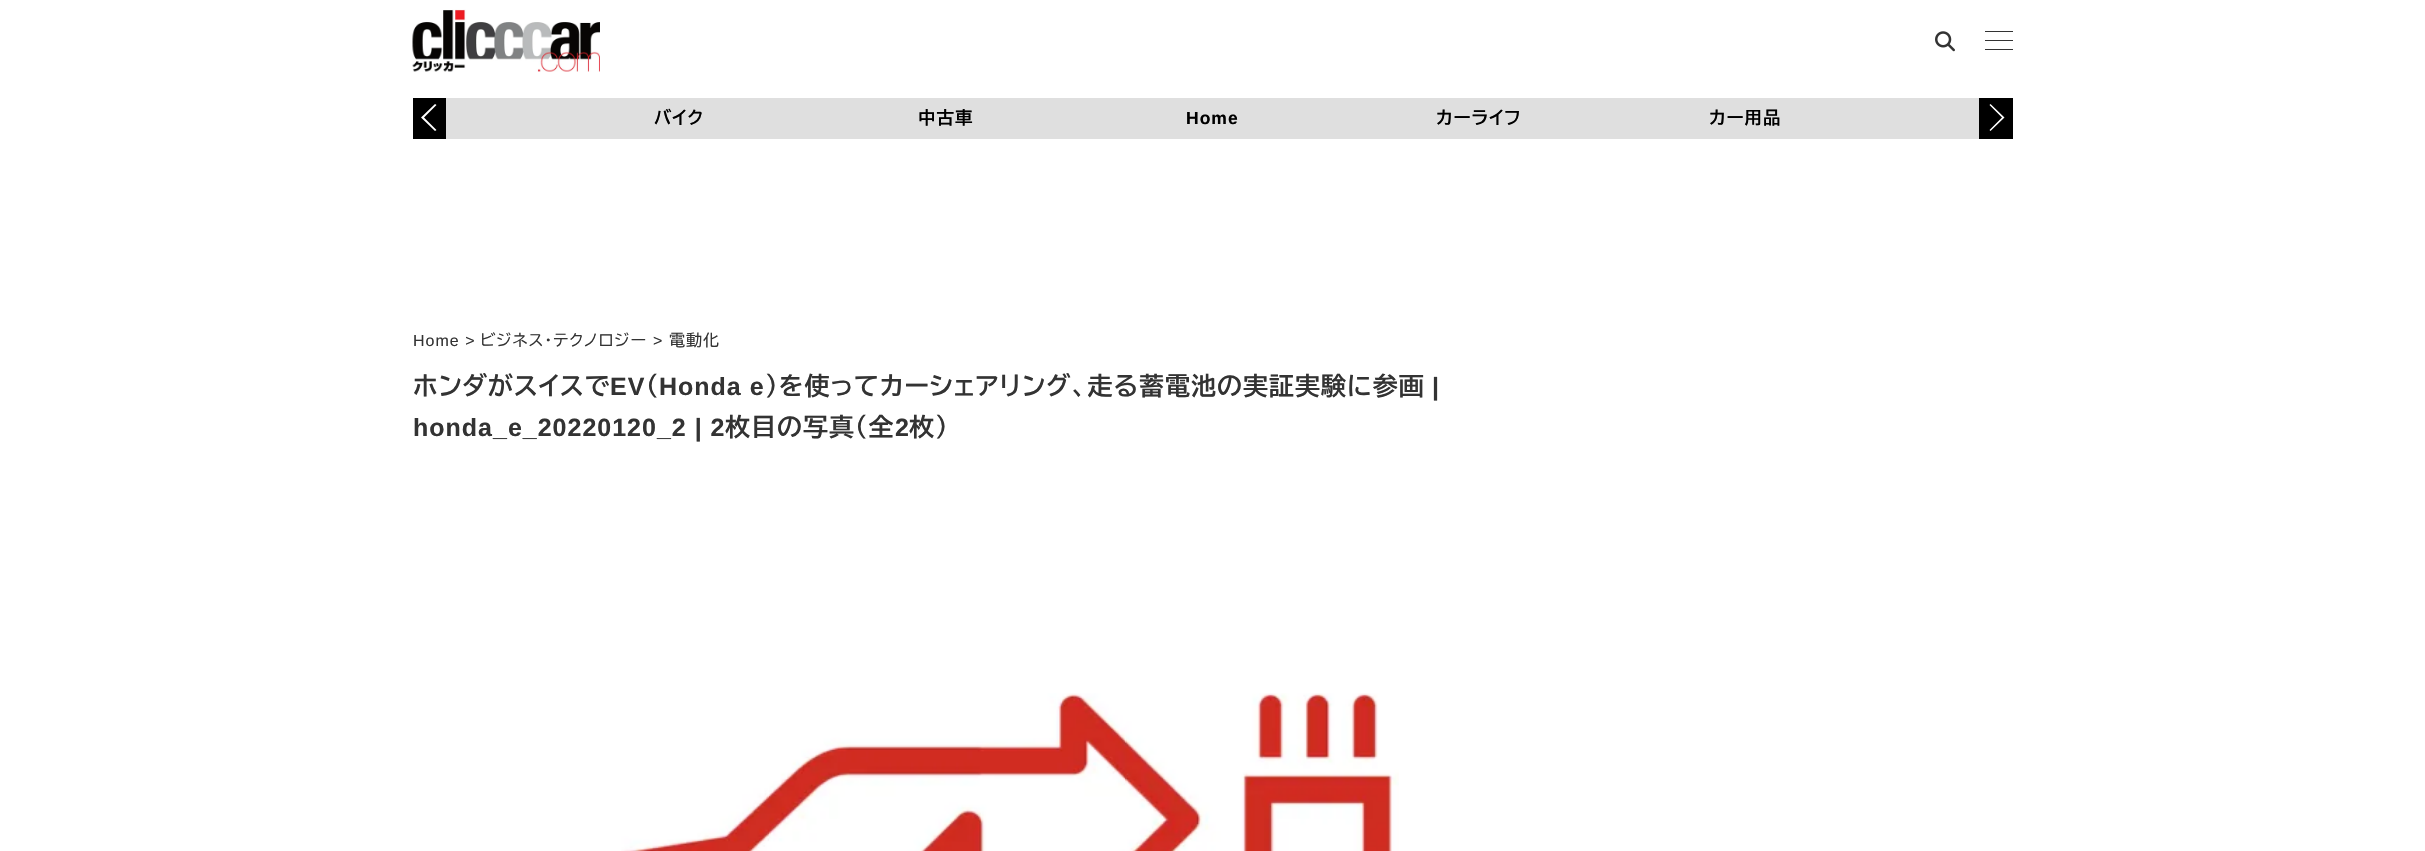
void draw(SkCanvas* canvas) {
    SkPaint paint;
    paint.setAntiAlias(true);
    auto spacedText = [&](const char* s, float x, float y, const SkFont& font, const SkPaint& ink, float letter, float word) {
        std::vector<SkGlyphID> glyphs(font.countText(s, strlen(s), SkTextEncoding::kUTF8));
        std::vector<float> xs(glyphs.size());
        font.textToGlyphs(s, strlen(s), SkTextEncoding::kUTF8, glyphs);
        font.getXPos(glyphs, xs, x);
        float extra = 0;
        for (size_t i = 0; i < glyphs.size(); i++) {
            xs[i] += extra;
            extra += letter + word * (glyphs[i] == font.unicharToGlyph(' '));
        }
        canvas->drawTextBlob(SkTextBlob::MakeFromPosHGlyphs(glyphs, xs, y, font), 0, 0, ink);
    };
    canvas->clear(0xFFFFFFFF);
    canvas->drawImageRect(SkImages::DeferredFromEncodedData(SkData::MakeFromFileName("img1.png")), SkRect::MakeXYWH(412, 9, 188, 63), SkSamplingOptions());
    canvas->drawImageRect(SkImages::DeferredFromEncodedData(SkData::MakeFromFileName("img2.png")), SkRect::MakeXYWH(1935, 31, 20, 21), SkSamplingOptions());
    paint.setColor(0xFF333333);
    canvas->drawRect(SkRect::MakeXYWH(1985, 31, 28, 1), paint);
    canvas->drawRect(SkRect::MakeXYWH(1985, 40, 28, 1), paint);
    canvas->drawRect(SkRect::MakeXYWH(1985, 49, 28, 1), paint);
    paint.setColor(0xFF000000);
    canvas->drawRect(SkRect::MakeXYWH(413, 98, 33, 41), paint);
    paint.setColor(0xFFFFFFFF);
    canvas->drawPath(SkPathBuilder().moveTo(421, 117.5f).lineTo(435, 104).lineTo(436.5f, 105).lineTo(424, 117.5f).lineTo(436.5f, 130).lineTo(435, 131).close().detach(), paint);
    paint.setColor(0xFFDFDFDF);
    canvas->drawRect(SkRect::MakeXYWH(446, 98, 633, 41), paint);
    SkFont font1(fontMgr->matchFamilyStyle("BIZ UDPGothic", SkFontStyle::Bold()), 17.5f);
    font1.setSubpixel(true);
    paint.setColor(0xFF000000);
    spacedText("バイク", 654, 124, font1, paint, 1, 0);
    spacedText("中古車", 918, 124, font1, paint, 1, 0);
    paint.setColor(0xFFDFDFDF);
    canvas->drawRect(SkRect::MakeXYWH(1079, 98, 900, 41), paint);
    SkFont font2(fontMgr->matchFamilyStyle("Liberation Sans", SkFontStyle::Bold()), 17.5f);
    font2.setSubpixel(true);
    paint.setColor(0xFF000000);
    spacedText("Home", 1186, 124, font2, paint, 1, 0);
    spacedText("カーライフ", 1436, 124, font1, paint, 1, 0);
    spacedText("カー用品", 1709, 124, font1, paint, 1, 0);
    canvas->drawRect(SkRect::MakeXYWH(1979, 98, 34, 41), paint);
    paint.setColor(0xFFFFFFFF);
    canvas->drawPath(SkPathBuilder().moveTo(2004.5f, 117.5f).lineTo(1990.5f, 131).lineTo(1989.5f, 130).lineTo(2002, 117.5f).lineTo(1989.5f, 105).lineTo(1990.5f, 104).close().detach(), paint);
    SkFont font3(fontMgr->matchFamilyStyle("Liberation Sans", SkFontStyle::Normal()), 16);
    font3.setSubpixel(true);
    paint.setColor(0xFF333333);
    spacedText("Home >", 413, 346, font3, paint, 1, 0);
    SkFont font4(fontMgr->matchFamilyStyle("BIZ UDPGothic", SkFontStyle::Normal()), 16);
    font4.setSubpixel(true);
    spacedText("ビジネス・テクノロジー", 480, 346, font4, paint, 1, 0);
    spacedText(">", 653, 346, font3, paint, 1, 0);
    spacedText("電動化", 669, 346, font4, paint, 1, 0);
    SkFont font5(fontMgr->matchFamilyStyle("BIZ UDPGothic", SkFontStyle::Bold()), 25);
    font5.setSubpixel(true);
    spacedText("ホンダがスイスで", 413, 395, font5, paint, 1, 0);
    SkFont font6(fontMgr->matchFamilyStyle("Liberation Sans", SkFontStyle::Bold()), 25);
    font6.setSubpixel(true);
    spacedText("EV", 610, 395, font6, paint, 1, 0);
    spacedText("（", 646, 395, font5, paint, 1, 0);
    spacedText("Honda e", 659, 395, font6, paint, 1, 0);
    spacedText("）を使ってカーシェアリング、走る蓄電池の実証実験に参画", 765, 395, font5, paint, 1, 0);
    spacedText("|", 1432, 395, font6, paint, 1, 0);
    spacedText("honda_e_20220120_2 | 2", 413, 436, font6, paint, 1, 0);
    spacedText("枚目の写真（全", 725, 436, font5, paint, 1, 0);
    spacedText("2", 895, 436, font6, paint, 1, 0);
    spacedText("枚）", 909, 436, font5, paint, 1, 0);
    canvas->drawImageRect(SkImages::DeferredFromEncodedData(SkData::MakeFromFileName("img3.png")), SkRect::MakeXYWH(621, 693, 778, 158), SkSamplingOptions());
}
